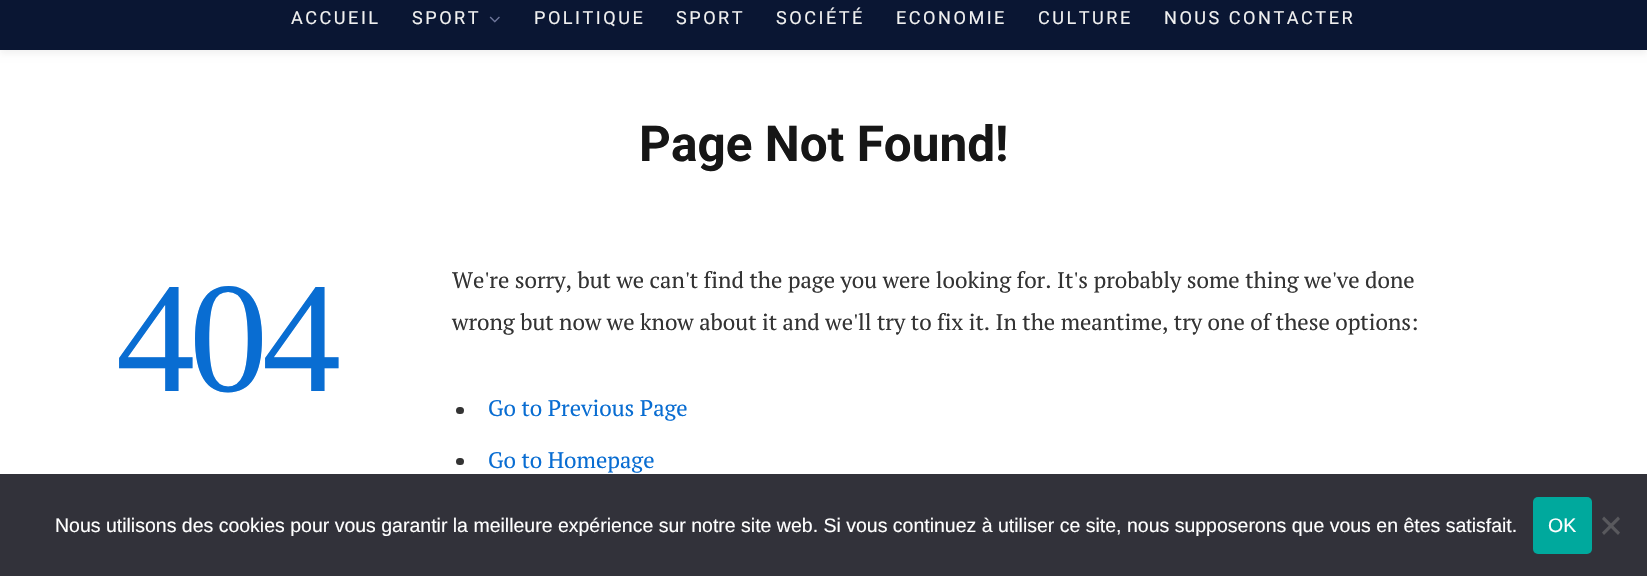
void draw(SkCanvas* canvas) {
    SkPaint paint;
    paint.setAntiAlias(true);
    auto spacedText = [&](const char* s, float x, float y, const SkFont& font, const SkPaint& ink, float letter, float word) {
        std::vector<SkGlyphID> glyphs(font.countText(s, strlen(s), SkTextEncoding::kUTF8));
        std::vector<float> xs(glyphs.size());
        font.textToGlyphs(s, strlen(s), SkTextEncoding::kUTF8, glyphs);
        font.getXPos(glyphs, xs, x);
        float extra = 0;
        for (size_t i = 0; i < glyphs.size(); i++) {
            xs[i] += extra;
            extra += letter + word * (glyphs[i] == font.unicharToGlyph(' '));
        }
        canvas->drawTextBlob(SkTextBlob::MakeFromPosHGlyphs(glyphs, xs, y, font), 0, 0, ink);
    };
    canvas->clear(0xFFFFFFFF);
    paint.setColor(0x0D000000);
    paint.setMaskFilter(SkMaskFilter::MakeBlur(kNormal_SkBlurStyle, 3));
    canvas->drawRect(SkRect::MakeXYWH(0, -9, 1647, 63), paint);
    paint.setMaskFilter(nullptr);
    paint.setColor(0xFF0A1633);
    canvas->drawRect(SkRect::MakeXYWH(0, 0, 1647, 50), paint);
    SkFont font1(fontMgr->matchFamilyStyle("Roboto", SkFontStyle::Normal()), 18.1f);
    font1.setSubpixel(true);
    paint.setColor(0xFFF0F0F0);
    spacedText("ACCUEIL", 291, 24, font1, paint, 2.5f, 0);
    spacedText("SPORT", 412, 24, font1, paint, 2.5f, 0);
    canvas->drawImageRect(SkImages::DeferredFromEncodedData(SkData::MakeFromFileName("img1.png")), SkRect::MakeXYWH(489, 16, 11, 7), SkSamplingOptions());
    spacedText("POLITIQUE", 534, 24, font1, paint, 2.5f, 0);
    spacedText("SPORT", 676, 24, font1, paint, 2.5f, 0);
    spacedText("SOCIÉTÉ", 776, 24, font1, paint, 2.5f, 0);
    spacedText("ECONOMIE", 896, 24, font1, paint, 2.5f, 0);
    spacedText("CULTURE", 1038, 24, font1, paint, 2.5f, 0);
    spacedText("NOUS CONTACTER", 1164, 24, font1, paint, 2.5f, 0);
    SkFont font2(fontMgr->matchFamilyStyle("Roboto", SkFontStyle::Bold()), 49.5f);
    font2.setSubpixel(true);
    paint.setColor(0xFF161616);
    canvas->drawString("Page Not Found!", 639, 161, font2, paint);
    SkFont font3(fontMgr->matchFamilyStyle("Liberation Serif", SkFontStyle::Normal()), 158);
    font3.setSubpixel(true);
    paint.setColor(0xFF096DD2);
    spacedText("404", 116, 391, font3, paint, -6, 0);
    SkFont font4(fontMgr->matchFamilyStyle("PT Serif", SkFontStyle::Normal()), 22.5f);
    font4.setSubpixel(true);
    paint.setColor(0xFF333333);
    canvas->drawString("We're sorry, but we can't find the page you were looking for. It's probably some thing we've done", 452, 288, font4, paint);
    canvas->drawString("wrong but now we know about it and we'll try to fix it. In the meantime, try one of these options:", 452, 330, font4, paint);
    canvas->drawRoundRect(SkRect::MakeXYWH(456, 407, 8, 7), 3.5f, 3.5f, paint);
    paint.setColor(0xFF096DD2);
    canvas->drawString("Go to Previous Page", 488, 416, font4, paint);
    paint.setColor(0xFF333333);
    canvas->drawRoundRect(SkRect::MakeXYWH(456, 458, 8, 7), 3.5f, 3.5f, paint);
    paint.setColor(0xFF096DD2);
    canvas->drawString("Go to Homepage", 488, 468, font4, paint);
    paint.setColor(0xFF32323A);
    canvas->drawRect(SkRect::MakeXYWH(0, 474, 1647, 102), paint);
    SkFont font5(fontMgr->matchFamilyStyle("Liberation Sans", SkFontStyle::Normal()), 19.5f);
    font5.setSubpixel(true);
    paint.setColor(0xFFFFFFFF);
    canvas->drawString("Nous utilisons des cookies pour vous garantir la meilleure expérience sur notre site web. Si vous continuez à utiliser ce site, nous supposerons que vous en êtes satisfait.", 55, 532, font5, paint);
    paint.setColor(0xFF00A99D);
    canvas->drawRoundRect(SkRect::MakeXYWH(1533, 497, 59, 57), 5, 5, paint);
    paint.setColor(0xFFFFFFFF);
    canvas->drawString("OK", 1548, 532, font5, paint);
    paint.setColor(0xFF59595D);
    canvas->drawPath(SkPathBuilder().moveTo(1618, 516.5f).lineTo(1620, 519).lineTo(1604, 535).lineTo(1602, 532.5f).close().detach(), paint);
    canvas->drawPath(SkPathBuilder().moveTo(1602, 519).lineTo(1604, 516.5f).lineTo(1620, 532.5f).lineTo(1618, 535).close().detach(), paint);
}
